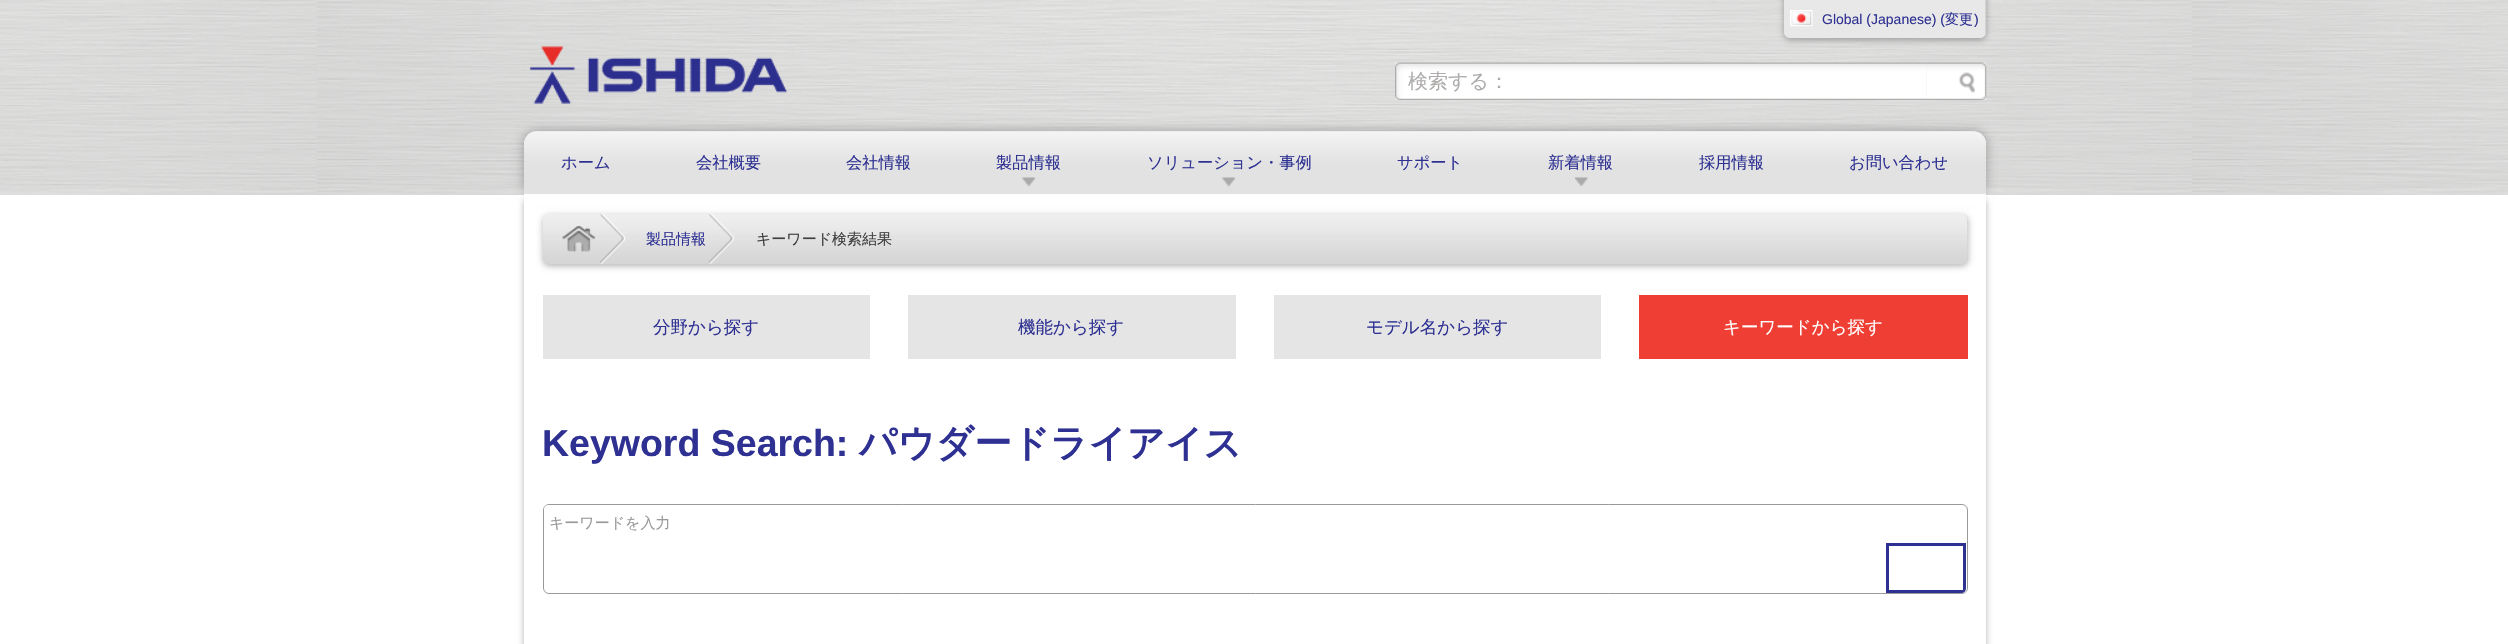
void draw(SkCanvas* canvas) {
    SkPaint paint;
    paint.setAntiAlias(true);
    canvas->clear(0xFFFFFFFF);
    canvas->drawImageRect(SkImages::DeferredFromEncodedData(SkData::MakeFromFileName("img1.png")), SkRect::MakeXYWH(0, 0, 2508, 195), SkSamplingOptions());
    paint.setColor(0x4D000000);
    paint.setMaskFilter(SkMaskFilter::MakeBlur(kNormal_SkBlurStyle, 3));
    canvas->drawRoundRect(SkRect::MakeXYWH(1784, -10, 202, 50), 6, 6, paint);
    paint.setMaskFilter(nullptr);
    paint.setColor(0xFFE8E8E8);
    canvas->drawPath(SkPathBuilder().moveTo(1784, -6).lineTo(1986, -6).lineTo(1986, 32).cubicTo(1986, 35.5f, 1983.5f, 38, 1980, 38).lineTo(1790, 38).cubicTo(1786.5f, 38, 1784, 35.5f, 1784, 32).close().detach(), paint);
    canvas->save();
    canvas->clipPath(SkPathBuilder().moveTo(1784, -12).lineTo(1986, -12).lineTo(1986, 32).cubicTo(1986, 35.5f, 1983.5f, 38, 1980, 38).lineTo(1790, 38).cubicTo(1786.5f, 38, 1784, 35.5f, 1784, 32).close().detach(), true);
    paint.setColor(0xFFD5D5D5);
    canvas->drawRect(SkRect::MakeXYWH(1985, 0, 1, 38), paint);
    canvas->restore();
    canvas->drawImageRect(SkImages::DeferredFromEncodedData(SkData::MakeFromFileName("img2.png")), SkRect::MakeXYWH(1790, 10, 23, 17), SkSamplingOptions());
    SkFont font1(fontMgr->matchFamilyStyle("Liberation Sans", SkFontStyle::Normal()), 14);
    font1.setSubpixel(true);
    paint.setColor(0xFF2E3192);
    canvas->drawString("Global (Japanese) (", 1822, 24, font1, paint);
    SkFont font2(fontMgr->matchFamilyStyle("WenQuanYi Zen Hei", SkFontStyle(500, SkFontStyle::kNormal_Width, SkFontStyle::kUpright_Slant)), 14);
    font2.setSubpixel(true);
    canvas->drawString("変更", 1945, 24, font2, paint);
    canvas->drawString(")", 1974, 24, font1, paint);
    canvas->drawImageRect(SkImages::DeferredFromEncodedData(SkData::MakeFromFileName("img3.png")), SkRect::MakeXYWH(529, 46, 259, 58), SkSamplingOptions());
    canvas->drawImageRect(SkImages::DeferredFromEncodedData(SkData::MakeFromFileName("img4.png")), SkRect::MakeXYWH(1395, 62, 532, 38), SkSamplingOptions());
    SkFont font3(fontMgr->matchFamilyStyle("WenQuanYi Zen Hei", SkFontStyle(500, SkFontStyle::kNormal_Width, SkFontStyle::kUpright_Slant)), 20);
    font3.setSubpixel(true);
    paint.setColor(0xFFAFACAC);
    canvas->drawString("検索する：", 1408, 88, font3, paint);
    canvas->drawImageRect(SkImages::DeferredFromEncodedData(SkData::MakeFromFileName("img5.png")), SkRect::MakeXYWH(1926, 62, 61, 38), SkSamplingOptions());
    paint.setColor(0x4D000000);
    paint.setMaskFilter(SkMaskFilter::MakeBlur(kNormal_SkBlurStyle, 6));
    canvas->drawRoundRect(SkRect::MakeXYWH(524, 131, 1462, 64), 13, 13, paint);
    paint.setMaskFilter(nullptr);
    paint.setColor(0xFFE8E8E8);
    canvas->drawPath(SkPathBuilder().moveTo(537, 131).lineTo(1973, 131).cubicTo(1980, 131, 1986, 137, 1986, 144).lineTo(1986, 195).lineTo(524, 195).lineTo(524, 144).cubicTo(524, 137, 530, 131, 537, 131).close().detach(), paint);
    paint.setColor(0xFFFFFFFF);
    canvas->drawRect(SkRect::MakeXYWH(518, 195, 1474, 11), paint);
    canvas->save();
    canvas->clipPath(SkPathBuilder(SkPathFillType::kEvenOdd).moveTo(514, 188).lineTo(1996, 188).lineTo(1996, 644).lineTo(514, 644).close().moveTo(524, 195).lineTo(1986, 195).lineTo(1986, 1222).cubicTo(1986, 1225.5f, 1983.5f, 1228, 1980, 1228).lineTo(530, 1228).cubicTo(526.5f, 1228, 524, 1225.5f, 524, 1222).close().detach(), true);
    paint.setColor(0x4D000000);
    paint.setMaskFilter(SkMaskFilter::MakeBlur(kNormal_SkBlurStyle, 3));
    canvas->drawRoundRect(SkRect::MakeXYWH(524, 198, 1462, 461), 6, 6, paint);
    paint.setMaskFilter(nullptr);
    canvas->restore();
    canvas->drawImageRect(SkImages::DeferredFromEncodedData(SkData::MakeFromFileName("img6.png")), SkRect::MakeXYWH(524, 131, 1462, 62), SkSamplingOptions());
    SkFont font4(fontMgr->matchFamilyStyle("WenQuanYi Zen Hei", SkFontStyle(500, SkFontStyle::kNormal_Width, SkFontStyle::kUpright_Slant)), 16.25f);
    font4.setSubpixel(true);
    paint.setColor(0xFF2E3192);
    canvas->drawString("ホーム", 561, 168, font4, paint);
    canvas->drawString("会社概要", 696, 168, font4, paint);
    canvas->drawString("会社情報", 846, 168, font4, paint);
    canvas->drawString("製品情報", 996, 168, font4, paint);
    canvas->drawImageRect(SkImages::DeferredFromEncodedData(SkData::MakeFromFileName("img7.png")), SkRect::MakeXYWH(1022, 177, 13, 10), SkSamplingOptions());
    canvas->drawString("ソリューション・事例", 1147, 168, font4, paint);
    canvas->drawImageRect(SkImages::DeferredFromEncodedData(SkData::MakeFromFileName("img8.png")), SkRect::MakeXYWH(1222, 177, 13, 10), SkSamplingOptions());
    canvas->drawString("サポート", 1397, 168, font4, paint);
    canvas->drawString("新着情報", 1548, 168, font4, paint);
    canvas->drawImageRect(SkImages::DeferredFromEncodedData(SkData::MakeFromFileName("img9.png")), SkRect::MakeXYWH(1575, 177, 13, 10), SkSamplingOptions());
    canvas->drawString("採用情報", 1699, 168, font4, paint);
    canvas->drawString("お問い合わせ", 1849, 168, font4, paint);
    paint.setColor(0xFFFFFFFF);
    canvas->drawRect(SkRect::MakeXYWH(524, 194, 1462, 1), paint);
    paint.setColor(0x4D000000);
    paint.setMaskFilter(SkMaskFilter::MakeBlur(kNormal_SkBlurStyle, 3));
    canvas->drawRoundRect(SkRect::MakeXYWH(543, 216, 1425, 50), 6, 6, paint);
    paint.setMaskFilter(nullptr);
    paint.setColor(0xFFD5D5D5);
    canvas->drawRoundRect(SkRect::MakeXYWH(543, 214, 1425, 50), 6, 6, paint);
    canvas->drawImageRect(SkImages::DeferredFromEncodedData(SkData::MakeFromFileName("img10.png")), SkRect::MakeXYWH(542, 214, 1426, 49), SkSamplingOptions());
    canvas->drawImageRect(SkImages::DeferredFromEncodedData(SkData::MakeFromFileName("img11.png")), SkRect::MakeXYWH(600, 213, 26, 51), SkSamplingOptions());
    canvas->drawImageRect(SkImages::DeferredFromEncodedData(SkData::MakeFromFileName("img12.png")), SkRect::MakeXYWH(562, 226, 34, 26), SkSamplingOptions());
    canvas->drawImageRect(SkImages::DeferredFromEncodedData(SkData::MakeFromFileName("img13.png")), SkRect::MakeXYWH(708, 213, 26, 51), SkSamplingOptions());
    SkFont font5(fontMgr->matchFamilyStyle("WenQuanYi Zen Hei", SkFontStyle(500, SkFontStyle::kNormal_Width, SkFontStyle::kUpright_Slant)), 15);
    font5.setSubpixel(true);
    paint.setColor(0xFF2E3192);
    canvas->drawString("製品情報", 646, 244, font5, paint);
    paint.setColor(0xFF3E3E3E);
    canvas->drawString("キーワード検索結果", 756, 244, font5, paint);
    paint.setColor(0xFFE5E5E5);
    canvas->drawRect(SkRect::MakeXYWH(543, 295, 327, 64), paint);
    SkFont font6(fontMgr->matchFamilyStyle("WenQuanYi Zen Hei", SkFontStyle(500, SkFontStyle::kNormal_Width, SkFontStyle::kUpright_Slant)), 17.5f);
    font6.setSubpixel(true);
    paint.setColor(0xFF2E3192);
    canvas->drawString("分野から探す", 653, 333, font6, paint);
    paint.setColor(0xFFE5E5E5);
    canvas->drawRect(SkRect::MakeXYWH(908, 295, 328, 64), paint);
    paint.setColor(0xFF2E3192);
    canvas->drawString("機能から探す", 1018, 333, font6, paint);
    paint.setColor(0xFFE5E5E5);
    canvas->drawRect(SkRect::MakeXYWH(1274, 295, 327, 64), paint);
    paint.setColor(0xFF2E3192);
    canvas->drawString("モデル名から探す", 1366, 333, font6, paint);
    paint.setColor(0xFFEF3E33);
    canvas->drawRect(SkRect::MakeXYWH(1639, 295, 329, 64), paint);
    paint.setColor(0xFFFFFFFF);
    canvas->drawString("キーワードから探す", 1723, 333, font6, paint);
    SkFont font7(fontMgr->matchFamilyStyle("Liberation Sans", SkFontStyle::Bold()), 37.5f);
    font7.setSubpixel(true);
    paint.setColor(0xFF2E3192);
    canvas->drawString("Keyword Search:", 542, 456, font7, paint);
    SkFont font8(fontMgr->matchFamilyStyle("WenQuanYi Zen Hei", SkFontStyle::Bold()), 37.5f);
    font8.setSubpixel(true);
    canvas->drawString("パウダードライアイス", 859, 456, font8, paint);
    paint.setStyle(SkPaint::kStroke_Style);
    paint.setStrokeWidth(1);
    paint.setColor(0xFF999999);
    canvas->drawRoundRect(SkRect::MakeXYWH(543.5f, 504.5f, 1424, 89), 5.5f, 5.5f, paint);
    paint.setStyle(SkPaint::kFill_Style);
    paint.setColor(0xFFFFFFFF);
    canvas->drawPath(SkPathBuilder().moveTo(549, 505).lineTo(1929, 505).lineTo(1929, 543).lineTo(544, 543).lineTo(544, 510).cubicTo(544, 507, 546, 505, 549, 505).close().detach(), paint);
    paint.setColor(0xFF999999);
    canvas->drawString("キーワードを入力", 549, 528, font5, paint);
    paint.setColor(0xFF2E3192);
    canvas->drawPath(SkPathBuilder(SkPathFillType::kEvenOdd).moveTo(1886, 543).lineTo(1886, 593).lineTo(1961, 593).cubicTo(1964, 593, 1966, 591, 1966, 588).lineTo(1966, 543).close().moveTo(1889, 546).lineTo(1889, 590).lineTo(1963, 590).lineTo(1963, 546).close().detach(), paint);
}
